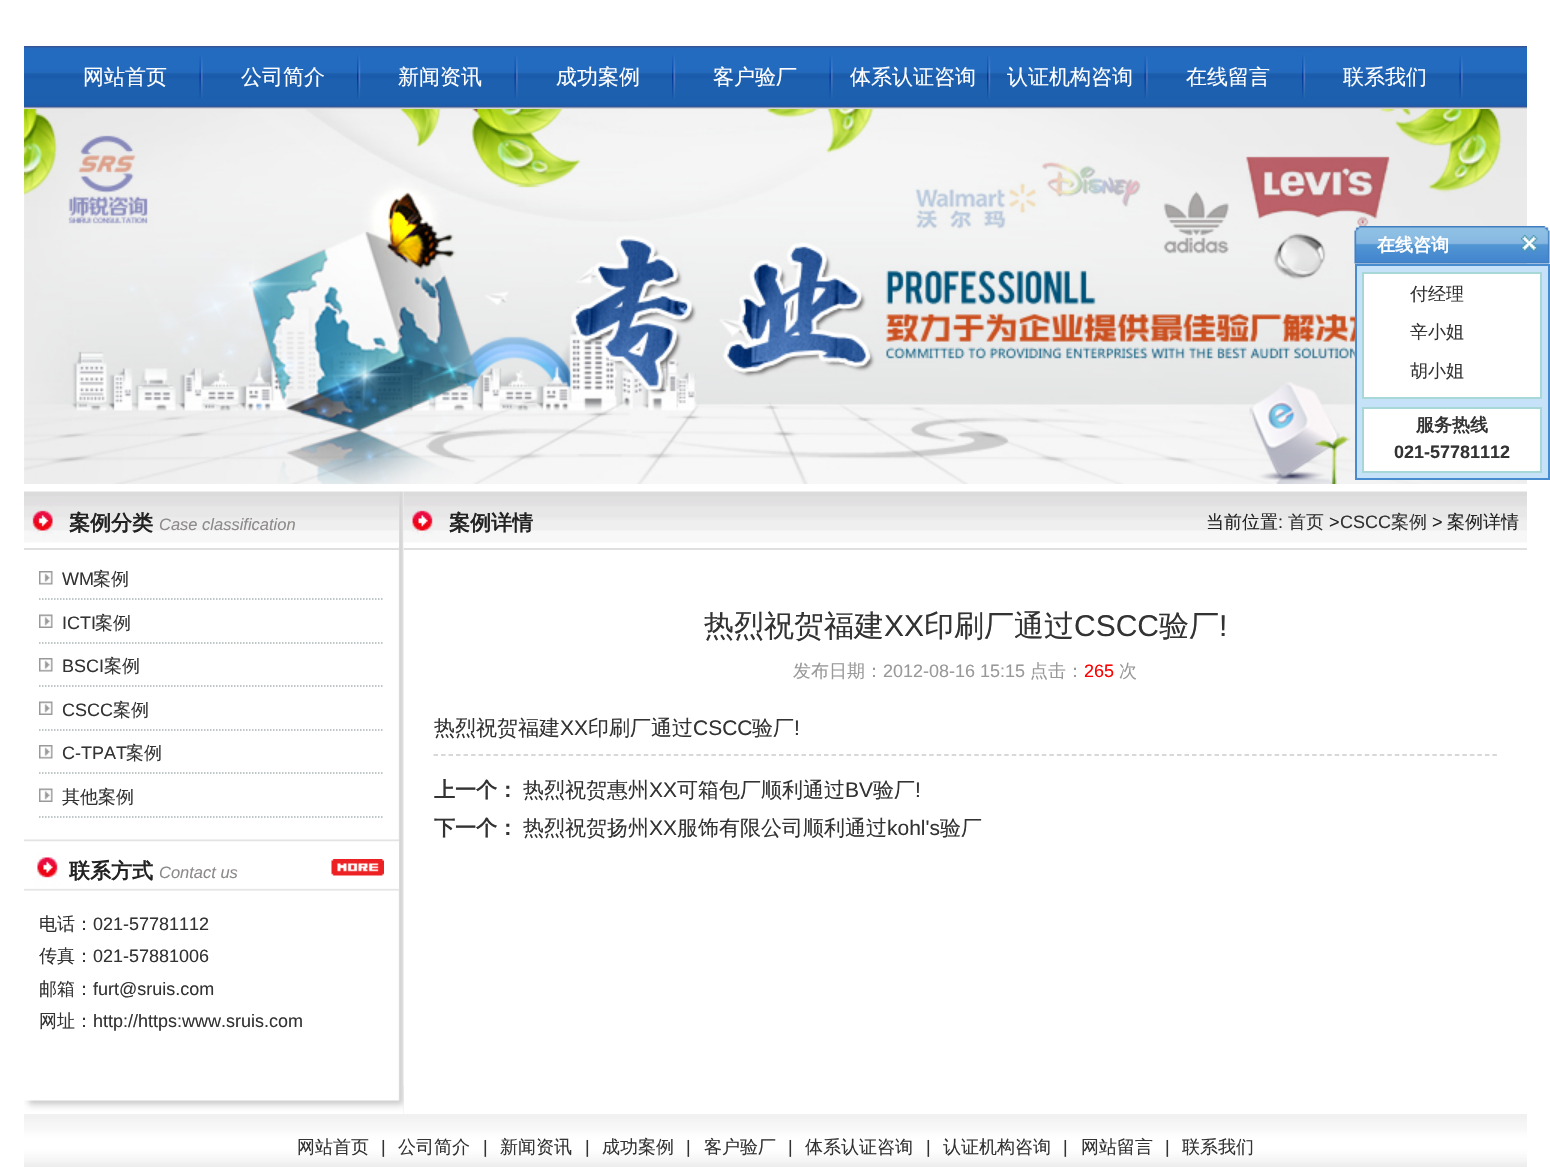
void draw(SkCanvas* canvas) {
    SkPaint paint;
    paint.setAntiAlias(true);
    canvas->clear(0xFFFFFFFF);
    canvas->drawImageRect(SkImages::DeferredFromEncodedData(SkData::MakeFromFileName("img1.png")), SkRect::MakeXYWH(24, 46, 1503, 63), SkSamplingOptions());
    canvas->drawImageRect(SkImages::DeferredFromEncodedData(SkData::MakeFromFileName("img2.png")), SkRect::MakeXYWH(199, 56, 4, 42), SkSamplingOptions());
    SkFont font1(fontMgr->matchFamilyStyle("WenQuanYi Zen Hei", SkFontStyle(500, SkFontStyle::kNormal_Width, SkFontStyle::kUpright_Slant)), 21);
    font1.setSubpixel(true);
    paint.setColor(0xFFFFFFFF);
    canvas->drawString("网站首页", 83, 84, font1, paint);
    canvas->drawImageRect(SkImages::DeferredFromEncodedData(SkData::MakeFromFileName("img3.png")), SkRect::MakeXYWH(357, 55, 4, 44), SkSamplingOptions());
    canvas->drawString("公司简介", 241, 84, font1, paint);
    canvas->drawImageRect(SkImages::DeferredFromEncodedData(SkData::MakeFromFileName("img4.png")), SkRect::MakeXYWH(514, 56, 4, 42), SkSamplingOptions());
    canvas->drawString("新闻资讯", 398, 84, font1, paint);
    canvas->drawImageRect(SkImages::DeferredFromEncodedData(SkData::MakeFromFileName("img5.png")), SkRect::MakeXYWH(672, 55, 4, 44), SkSamplingOptions());
    canvas->drawString("成功案例", 556, 84, font1, paint);
    canvas->drawImageRect(SkImages::DeferredFromEncodedData(SkData::MakeFromFileName("img2.png")), SkRect::MakeXYWH(829, 56, 4, 42), SkSamplingOptions());
    canvas->drawString("客户验厂", 713, 84, font1, paint);
    canvas->drawImageRect(SkImages::DeferredFromEncodedData(SkData::MakeFromFileName("img5.png")), SkRect::MakeXYWH(987, 55, 4, 44), SkSamplingOptions());
    canvas->drawString("体系认证咨询", 850, 84, font1, paint);
    canvas->drawImageRect(SkImages::DeferredFromEncodedData(SkData::MakeFromFileName("img4.png")), SkRect::MakeXYWH(1144, 56, 4, 42), SkSamplingOptions());
    canvas->drawString("认证机构咨询", 1007, 84, font1, paint);
    canvas->drawImageRect(SkImages::DeferredFromEncodedData(SkData::MakeFromFileName("img5.png")), SkRect::MakeXYWH(1302, 55, 4, 44), SkSamplingOptions());
    canvas->drawString("在线留言", 1186, 84, font1, paint);
    canvas->drawImageRect(SkImages::DeferredFromEncodedData(SkData::MakeFromFileName("img4.png")), SkRect::MakeXYWH(1459, 56, 4, 42), SkSamplingOptions());
    canvas->drawString("联系我们", 1343, 84, font1, paint);
    canvas->drawImageRect(SkImages::DeferredFromEncodedData(SkData::MakeFromFileName("img6.png")), SkRect::MakeXYWH(24, 109, 1503, 375), SkSamplingOptions());
    canvas->drawImageRect(SkImages::DeferredFromEncodedData(SkData::MakeFromFileName("img7.png")), SkRect::MakeXYWH(1354, 226, 196, 38), SkSamplingOptions());
    SkFont font2(fontMgr->matchFamilyStyle("WenQuanYi Zen Hei", SkFontStyle::Bold()), 18);
    font2.setSubpixel(true);
    canvas->drawString("在线咨询", 1377, 251, font2, paint);
    canvas->drawImageRect(SkImages::DeferredFromEncodedData(SkData::MakeFromFileName("img8.png")), SkRect::MakeXYWH(1521, 235, 17, 17), SkSamplingOptions());
    paint.setColor(0xFFC5E2F8);
    canvas->drawRect(SkRect::MakeXYWH(1356, 265, 193, 214), paint);
    paint.setStyle(SkPaint::kStroke_Style);
    paint.setStrokeWidth(2);
    paint.setColor(0xFF498BCF);
    canvas->drawRect(SkRect::MakeXYWH(1356, 265, 193, 214), paint);
    paint.setStyle(SkPaint::kFill_Style);
    paint.setColor(0xFFFFFFFF);
    canvas->drawRect(SkRect::MakeXYWH(1363, 273, 178, 125), paint);
    paint.setStyle(SkPaint::kStroke_Style);
    paint.setColor(0xFFA7D8D7);
    canvas->drawRect(SkRect::MakeXYWH(1363, 273, 178, 125), paint);
    SkFont font3(fontMgr->matchFamilyStyle("WenQuanYi Zen Hei", SkFontStyle(500, SkFontStyle::kNormal_Width, SkFontStyle::kUpright_Slant)), 18);
    font3.setSubpixel(true);
    paint.setStyle(SkPaint::kFill_Style);
    paint.setColor(0xFF333333);
    canvas->drawString("付经理", 1410, 300, font3, paint);
    canvas->drawString("辛小姐", 1410, 338, font3, paint);
    canvas->drawString("胡小姐", 1410, 377, font3, paint);
    paint.setColor(0xFFFFFFFF);
    canvas->drawRect(SkRect::MakeXYWH(1363, 408, 178, 64), paint);
    paint.setStyle(SkPaint::kStroke_Style);
    paint.setColor(0xFFA7D8D7);
    canvas->drawRect(SkRect::MakeXYWH(1363, 408, 178, 64), paint);
    paint.setStyle(SkPaint::kFill_Style);
    paint.setColor(0xFF333333);
    canvas->drawString("服务热线", 1416, 431, font2, paint);
    SkFont font4(fontMgr->matchFamilyStyle("Liberation Sans", SkFontStyle::Bold()), 18);
    font4.setSubpixel(true);
    canvas->drawString("021-57781112", 1394, 458, font4, paint);
    canvas->drawImageRect(SkImages::DeferredFromEncodedData(SkData::MakeFromFileName("img9.png")), SkRect::MakeXYWH(398, 491, 6, 623), SkSamplingOptions());
    canvas->drawImageRect(SkImages::DeferredFromEncodedData(SkData::MakeFromFileName("img10.png")), SkRect::MakeXYWH(24, 491, 375, 56), SkSamplingOptions());
    paint.setColor(0xFFDFDFDF);
    canvas->drawRect(SkRect::MakeXYWH(24, 548, 375, 2), paint);
    SkFont font5(fontMgr->matchFamilyStyle("WenQuanYi Zen Hei", SkFontStyle::Bold()), 21);
    font5.setSubpixel(true);
    paint.setColor(0xFF222222);
    canvas->drawString("案例分类", 69, 530, font5, paint);
    SkFont font6(fontMgr->matchFamilyStyle("Liberation Sans", SkFontStyle::Italic()), 16.5f);
    font6.setSubpixel(true);
    paint.setColor(0xFF8E8A8A);
    canvas->drawString("Case classification", 159, 530, font6, paint);
    canvas->drawImageRect(SkImages::DeferredFromEncodedData(SkData::MakeFromFileName("img11.png")), SkRect::MakeXYWH(39, 571, 14, 14), SkSamplingOptions());
    paint.setStyle(SkPaint::kStroke_Style);
    paint.setStrokeWidth(1.5f);
    paint.setColor(0xFFA9B3B5);
    paint.setPathEffect(SkDashPathEffect::Make({{1.5f, 1.5f}}, 0));
    canvas->drawPath(SkPathBuilder().moveTo(39, 599).lineTo(384, 599).detach(), paint);
    paint.setPathEffect(nullptr);
    SkFont font7(fontMgr->matchFamilyStyle("Liberation Sans", SkFontStyle::Normal()), 18);
    font7.setSubpixel(true);
    paint.setStyle(SkPaint::kFill_Style);
    paint.setColor(0xFF333333);
    canvas->drawString("WM", 62, 585, font7, paint);
    canvas->drawString("案例", 93, 585, font3, paint);
    canvas->drawImageRect(SkImages::DeferredFromEncodedData(SkData::MakeFromFileName("img12.png")), SkRect::MakeXYWH(39, 614, 14, 14), SkSamplingOptions());
    paint.setStyle(SkPaint::kStroke_Style);
    paint.setColor(0xFFA9B3B5);
    paint.setPathEffect(SkDashPathEffect::Make({{1.5f, 1.5f}}, 0));
    canvas->drawPath(SkPathBuilder().moveTo(39, 643).lineTo(384, 643).detach(), paint);
    paint.setPathEffect(nullptr);
    paint.setStyle(SkPaint::kFill_Style);
    paint.setColor(0xFF333333);
    canvas->drawString("ICTI", 62, 629, font7, paint);
    canvas->drawString("案例", 95, 629, font3, paint);
    canvas->drawImageRect(SkImages::DeferredFromEncodedData(SkData::MakeFromFileName("img11.png")), SkRect::MakeXYWH(39, 658, 14, 14), SkSamplingOptions());
    paint.setStyle(SkPaint::kStroke_Style);
    paint.setColor(0xFFA9B3B5);
    paint.setPathEffect(SkDashPathEffect::Make({{1.5f, 1.5f}}, 0));
    canvas->drawPath(SkPathBuilder().moveTo(39, 686).lineTo(384, 686).detach(), paint);
    paint.setPathEffect(nullptr);
    paint.setStyle(SkPaint::kFill_Style);
    paint.setColor(0xFF333333);
    canvas->drawString("BSCI", 62, 672, font7, paint);
    canvas->drawString("案例", 104, 672, font3, paint);
    canvas->drawImageRect(SkImages::DeferredFromEncodedData(SkData::MakeFromFileName("img12.png")), SkRect::MakeXYWH(39, 701, 14, 14), SkSamplingOptions());
    paint.setStyle(SkPaint::kStroke_Style);
    paint.setColor(0xFFA9B3B5);
    paint.setPathEffect(SkDashPathEffect::Make({{1.5f, 1.5f}}, 0));
    canvas->drawPath(SkPathBuilder().moveTo(39, 730).lineTo(384, 730).detach(), paint);
    paint.setPathEffect(nullptr);
    paint.setStyle(SkPaint::kFill_Style);
    paint.setColor(0xFF333333);
    canvas->drawString("CSCC", 62, 716, font7, paint);
    canvas->drawString("案例", 113, 716, font3, paint);
    canvas->drawImageRect(SkImages::DeferredFromEncodedData(SkData::MakeFromFileName("img11.png")), SkRect::MakeXYWH(39, 745, 14, 14), SkSamplingOptions());
    paint.setStyle(SkPaint::kStroke_Style);
    paint.setColor(0xFFA9B3B5);
    paint.setPathEffect(SkDashPathEffect::Make({{1.5f, 1.5f}}, 0));
    canvas->drawPath(SkPathBuilder().moveTo(39, 773).lineTo(384, 773).detach(), paint);
    paint.setPathEffect(nullptr);
    paint.setStyle(SkPaint::kFill_Style);
    paint.setColor(0xFF333333);
    canvas->drawString("C-TPAT", 62, 759, font7, paint);
    canvas->drawString("案例", 126, 759, font3, paint);
    canvas->drawImageRect(SkImages::DeferredFromEncodedData(SkData::MakeFromFileName("img12.png")), SkRect::MakeXYWH(39, 788, 14, 14), SkSamplingOptions());
    paint.setStyle(SkPaint::kStroke_Style);
    paint.setColor(0xFFA9B3B5);
    paint.setPathEffect(SkDashPathEffect::Make({{1.5f, 1.5f}}, 0));
    canvas->drawPath(SkPathBuilder().moveTo(39, 817).lineTo(384, 817).detach(), paint);
    paint.setPathEffect(nullptr);
    paint.setStyle(SkPaint::kFill_Style);
    paint.setColor(0xFF333333);
    canvas->drawString("其他案例", 62, 803, font3, paint);
    canvas->drawImageRect(SkImages::DeferredFromEncodedData(SkData::MakeFromFileName("img13.png")), SkRect::MakeXYWH(24, 839, 375, 52), SkSamplingOptions());
    paint.setColor(0xFF222222);
    canvas->drawString("联系方式", 69, 878, font5, paint);
    paint.setColor(0xFF8E8A8A);
    canvas->drawString("Contact us", 159, 878, font6, paint);
    canvas->drawImageRect(SkImages::DeferredFromEncodedData(SkData::MakeFromFileName("img14.png")), SkRect::MakeXYWH(331, 859, 53, 17), SkSamplingOptions());
    paint.setColor(0xFF333333);
    canvas->drawString("电话：", 39, 930, font3, paint);
    canvas->drawString("021-57781112", 93, 930, font7, paint);
    canvas->drawString("传真：", 39, 962, font3, paint);
    canvas->drawString("021-57881006", 93, 962, font7, paint);
    canvas->drawString("邮箱：", 39, 995, font3, paint);
    canvas->drawString("furt@sruis.com", 93, 995, font7, paint);
    canvas->drawString("网址：", 39, 1027, font3, paint);
    canvas->drawString("http://https:www.sruis.com", 93, 1027, font7, paint);
    canvas->drawImageRect(SkImages::DeferredFromEncodedData(SkData::MakeFromFileName("img15.png")), SkRect::MakeXYWH(24, 1086, 380, 28), SkSamplingOptions());
    canvas->drawImageRect(SkImages::DeferredFromEncodedData(SkData::MakeFromFileName("img16.png")), SkRect::MakeXYWH(403, 491, 1124, 56), SkSamplingOptions());
    paint.setColor(0xFFDFDFDF);
    canvas->drawRect(SkRect::MakeXYWH(404, 548, 1123, 2), paint);
    paint.setColor(0xFF222222);
    canvas->drawString("案例详情", 449, 530, font5, paint);
    canvas->drawString("当前位置", 1206, 528, font3, paint);
    canvas->drawString(":", 1278, 528, font7, paint);
    paint.setColor(0xFF333333);
    canvas->drawString("首页", 1288, 528, font3, paint);
    paint.setColor(0xFF222222);
    canvas->drawString(">", 1329, 528, font7, paint);
    paint.setColor(0xFF333333);
    canvas->drawString("CSCC", 1340, 528, font7, paint);
    canvas->drawString("案例", 1391, 528, font3, paint);
    paint.setColor(0xFF222222);
    canvas->drawString(">", 1432, 528, font7, paint);
    canvas->drawString("案例详情", 1447, 528, font3, paint);
    SkFont font8(fontMgr->matchFamilyStyle("WenQuanYi Zen Hei", SkFontStyle(500, SkFontStyle::kNormal_Width, SkFontStyle::kUpright_Slant)), 30);
    font8.setSubpixel(true);
    paint.setColor(0xFF333333);
    canvas->drawString("热烈祝贺福建", 704, 636, font8, paint);
    SkFont font9(fontMgr->matchFamilyStyle("Liberation Sans", SkFontStyle::Normal()), 30);
    font9.setSubpixel(true);
    canvas->drawString("XX", 884, 636, font9, paint);
    canvas->drawString("印刷厂通过", 924, 636, font8, paint);
    canvas->drawString("CSCC", 1074, 636, font9, paint);
    canvas->drawString("验厂", 1159, 636, font8, paint);
    canvas->drawString("!", 1219, 636, font9, paint);
    paint.setColor(0xFF999999);
    canvas->drawString("发布日期：", 793, 677, font3, paint);
    canvas->drawString("2012-08-16 15:15", 883, 677, font7, paint);
    canvas->drawString("点击：", 1030, 677, font3, paint);
    paint.setColor(0xFFFF0000);
    canvas->drawString("265", 1084, 677, font7, paint);
    paint.setColor(0xFF999999);
    canvas->drawString("次", 1119, 677, font3, paint);
    paint.setColor(0xFF333333);
    canvas->drawString("热烈祝贺福建", 434, 735, font1, paint);
    SkFont font10(fontMgr->matchFamilyStyle("Liberation Sans", SkFontStyle::Normal()), 21);
    font10.setSubpixel(true);
    canvas->drawString("XX", 560, 735, font10, paint);
    canvas->drawString("印刷厂通过", 588, 735, font1, paint);
    canvas->drawString("CSCC", 693, 735, font10, paint);
    canvas->drawString("验厂", 752, 735, font1, paint);
    canvas->drawString("!", 794, 735, font10, paint);
    paint.setStyle(SkPaint::kStroke_Style);
    paint.setColor(0xFFCCCCCC);
    paint.setPathEffect(SkDashPathEffect::Make({{4.5f, 3.01f}}, 0));
    canvas->drawPath(SkPathBuilder().moveTo(433.5f, 755).lineTo(1497, 755).detach(), paint);
    paint.setPathEffect(nullptr);
    paint.setStyle(SkPaint::kFill_Style);
    paint.setColor(0xFF333333);
    canvas->drawString("上一个：", 434, 797, font5, paint);
    canvas->drawString("热烈祝贺惠州", 523, 797, font1, paint);
    canvas->drawString("XX", 649, 797, font10, paint);
    canvas->drawString("可箱包厂顺利通过", 677, 797, font1, paint);
    canvas->drawString("BV", 845, 797, font10, paint);
    canvas->drawString("验厂", 873, 797, font1, paint);
    canvas->drawString("!", 915, 797, font10, paint);
    canvas->drawString("下一个：", 434, 835, font5, paint);
    canvas->drawString("热烈祝贺扬州", 523, 835, font1, paint);
    canvas->drawString("XX", 649, 835, font10, paint);
    canvas->drawString("服饰有限公司顺利通过", 677, 835, font1, paint);
    canvas->drawString("kohl's", 887, 835, font10, paint);
    canvas->drawString("验厂", 940, 835, font1, paint);
    canvas->drawImageRect(SkImages::DeferredFromEncodedData(SkData::MakeFromFileName("img17.png")), SkRect::MakeXYWH(24, 1114, 1503, 53), SkSamplingOptions());
    canvas->drawString("网站首页", 297, 1153, font3, paint);
    canvas->drawString("|", 381, 1153, font7, paint);
    canvas->drawString("公司简介", 398, 1153, font3, paint);
    canvas->drawString("|", 483, 1153, font7, paint);
    canvas->drawString("新闻资讯", 500, 1153, font3, paint);
    canvas->drawString("|", 585, 1153, font7, paint);
    canvas->drawString("成功案例", 602, 1153, font3, paint);
    canvas->drawString("|", 686, 1153, font7, paint);
    canvas->drawString("客户验厂", 704, 1153, font3, paint);
    canvas->drawString("|", 788, 1153, font7, paint);
    canvas->drawString("体系认证咨询", 805, 1153, font3, paint);
    canvas->drawString("|", 926, 1153, font7, paint);
    canvas->drawString("认证机构咨询", 943, 1153, font3, paint);
    canvas->drawString("|", 1063, 1153, font7, paint);
    canvas->drawString("网站留言", 1081, 1153, font3, paint);
    canvas->drawString("|", 1165, 1153, font7, paint);
    canvas->drawString("联系我们", 1182, 1153, font3, paint);
}
